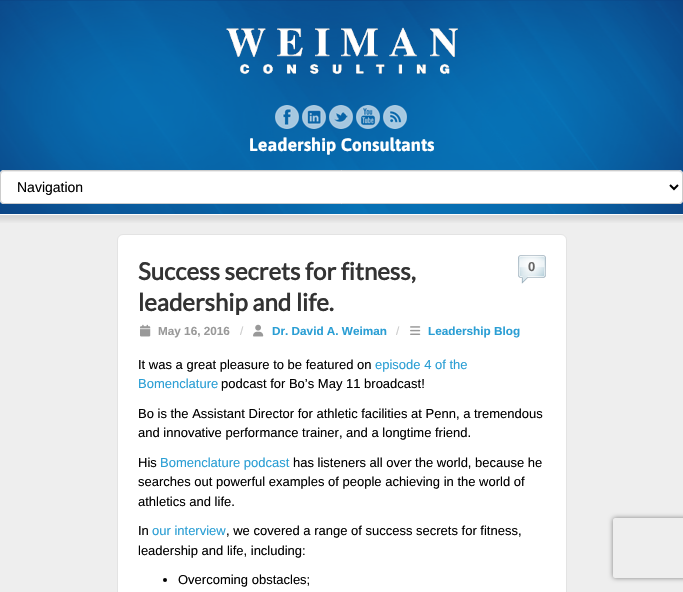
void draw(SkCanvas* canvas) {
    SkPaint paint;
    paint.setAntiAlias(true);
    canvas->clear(0xFFFFFFFF);
    canvas->drawImageRect(SkImages::DeferredFromEncodedData(SkData::MakeFromFileName("img1.png")), SkRect::MakeXYWH(0, 0, 683, 214), SkSamplingOptions());
    canvas->drawImageRect(SkImages::DeferredFromEncodedData(SkData::MakeFromFileName("img2.png")), SkRect::MakeXYWH(226, 27, 232, 47), SkSamplingOptions());
    canvas->drawImageRect(SkImages::DeferredFromEncodedData(SkData::MakeFromFileName("img3.png")), SkRect::MakeXYWH(275, 105, 24, 24), SkSamplingOptions());
    canvas->drawImageRect(SkImages::DeferredFromEncodedData(SkData::MakeFromFileName("img4.png")), SkRect::MakeXYWH(302, 105, 24, 24), SkSamplingOptions());
    canvas->drawImageRect(SkImages::DeferredFromEncodedData(SkData::MakeFromFileName("img5.png")), SkRect::MakeXYWH(329, 105, 24, 24), SkSamplingOptions());
    canvas->drawImageRect(SkImages::DeferredFromEncodedData(SkData::MakeFromFileName("img6.png")), SkRect::MakeXYWH(356, 105, 24, 24), SkSamplingOptions());
    canvas->drawImageRect(SkImages::DeferredFromEncodedData(SkData::MakeFromFileName("img7.png")), SkRect::MakeXYWH(383, 105, 24, 24), SkSamplingOptions());
    SkFont font1(fontMgr->matchFamilyStyle("Asap", SkFontStyle::Bold()), 18);
    font1.setSubpixel(true);
    paint.setColor(0xFFFFFFFF);
    canvas->drawString("Leadership Consultants", 249, 151, font1, paint);
    canvas->drawRoundRect(SkRect::MakeXYWH(0, 170, 683, 34), 4, 4, paint);
    paint.setColor(0xFFECECEC);
    canvas->drawPath(SkPathBuilder().moveTo(4, 172).lineTo(679, 172).cubicTo(681, 172, 682, 173, 682, 175).lineTo(682, 174).cubicTo(682, 172, 681, 171, 679, 171).lineTo(4, 171).cubicTo(2, 171, 1, 172, 1, 174).lineTo(1, 175).cubicTo(1, 173, 2, 172, 4, 172).close().detach(), paint);
    paint.setStyle(SkPaint::kStroke_Style);
    paint.setStrokeWidth(1);
    paint.setColor(0xFFCCCCCC);
    canvas->drawRoundRect(SkRect::MakeXYWH(0.5f, 170.5f, 682, 33), 3.5f, 3.5f, paint);
    paint.setStrokeWidth(2);
    paint.setColor(0xFF000000);
    canvas->drawPath(SkPathBuilder().moveTo(670, 185).lineTo(674, 189).lineTo(678, 185).detach(), paint);
    SkFont font2(fontMgr->matchFamilyStyle("Liberation Sans", SkFontStyle::Normal()), 14);
    font2.setSubpixel(true);
    paint.setStyle(SkPaint::kFill_Style);
    canvas->drawString("Navigation", 17, 192, font2, paint);
    canvas->drawImageRect(SkImages::DeferredFromEncodedData(SkData::MakeFromFileName("img8.png")), SkRect::MakeXYWH(0, 214, 683, 9), SkSamplingOptions());
    paint.setColor(0xFFEEEEEE);
    canvas->drawRect(SkRect::MakeXYWH(0, 223, 683, 369), paint);
    paint.setColor(0xFFFFFFFF);
    canvas->drawRoundRect(SkRect::MakeXYWH(117.5f, 234.5f, 449, 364), 5.5f, 5.5f, paint);
    paint.setStyle(SkPaint::kStroke_Style);
    paint.setStrokeWidth(1);
    paint.setColor(0xFFE3E3E3);
    canvas->drawRoundRect(SkRect::MakeXYWH(117.5f, 234.5f, 449, 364), 5.5f, 5.5f, paint);
    SkFont font3(fontMgr->matchFamilyStyle("Lato", SkFontStyle::Bold()), 24);
    font3.setSubpixel(true);
    paint.setStyle(SkPaint::kFill_Style);
    paint.setColor(0xFF333333);
    canvas->drawString("Success secrets for fitness,", 138, 280, font3, paint);
    canvas->drawString("leadership and life.", 138, 311, font3, paint);
    canvas->drawImageRect(SkImages::DeferredFromEncodedData(SkData::MakeFromFileName("img9.png")), SkRect::MakeXYWH(518, 255, 28, 29), SkSamplingOptions());
    SkFont font4(fontMgr->matchFamilyStyle("Liberation Sans", SkFontStyle::Bold()), 13);
    font4.setSubpixel(true);
    paint.setColor(0xFF666666);
    canvas->drawString("0", 528, 271, font4, paint);
    canvas->drawImageRect(SkImages::DeferredFromEncodedData(SkData::MakeFromFileName("img10.png")), SkRect::MakeXYWH(140, 324, 11, 13), SkSamplingOptions());
    SkFont font5(fontMgr->matchFamilyStyle("Liberation Sans", SkFontStyle::Bold()), 11.75f);
    font5.setSubpixel(true);
    paint.setColor(0xFF999999);
    canvas->drawString("May 16, 2016", 158, 335, font5, paint);
    SkFont font6(fontMgr->matchFamilyStyle("Liberation Sans", SkFontStyle::Normal()), 11.75f);
    font6.setSubpixel(true);
    paint.setColor(0xFFCCCCCC);
    canvas->drawString("/", 240, 335, font6, paint);
    canvas->drawImageRect(SkImages::DeferredFromEncodedData(SkData::MakeFromFileName("img11.png")), SkRect::MakeXYWH(253, 324, 11, 13), SkSamplingOptions());
    paint.setColor(0xFF2A9ED4);
    canvas->drawString("Dr. David A. Weiman", 272, 335, font5, paint);
    paint.setColor(0xFFCCCCCC);
    canvas->drawString("/", 396, 335, font6, paint);
    canvas->drawImageRect(SkImages::DeferredFromEncodedData(SkData::MakeFromFileName("img12.png")), SkRect::MakeXYWH(410, 326, 11, 9), SkSamplingOptions());
    paint.setColor(0xFF2A9ED4);
    canvas->drawString("Leadership Blog", 428, 335, font5, paint);
    SkFont font7(fontMgr->matchFamilyStyle("Liberation Sans", SkFontStyle::Normal()), 13);
    font7.setSubpixel(true);
    paint.setColor(0xFF000000);
    canvas->drawString("It was a great pleasure to be featured on", 138, 369, font7, paint);
    paint.setColor(0xFF2A9ED4);
    canvas->drawString("episode 4 of the", 375, 369, font7, paint);
    canvas->drawString("Bomenclature", 138, 388, font7, paint);
    paint.setColor(0xFF000000);
    canvas->drawString("podcast for Bo’s May 11 broadcast!", 221, 388, font7, paint);
    canvas->drawString("Bo is the Assistant Director for athletic facilities at Penn, a tremendous", 138, 418, font7, paint);
    canvas->drawString("and innovative performance trainer, and a longtime friend.", 138, 437, font7, paint);
    canvas->drawString("His", 138, 467, font7, paint);
    paint.setColor(0xFF2A9ED4);
    canvas->drawString("Bomenclature podcast", 160, 467, font7, paint);
    paint.setColor(0xFF000000);
    canvas->drawString("has listeners all over the world, because he", 293, 467, font7, paint);
    canvas->drawString("searches out powerful examples of people achieving in the world of", 138, 486, font7, paint);
    canvas->drawString("athletics and life.", 138, 506, font7, paint);
    canvas->drawString("In", 138, 535, font7, paint);
    paint.setColor(0xFF2A9ED4);
    canvas->drawString("our interview", 152, 535, font7, paint);
    paint.setColor(0xFF000000);
    canvas->drawString(", we covered a range of success secrets for fitness,", 226, 535, font7, paint);
    canvas->drawString("leadership and life, including:", 138, 555, font7, paint);
    canvas->drawCircle(165, 580, 2, paint);
    canvas->drawString("Overcoming obstacles;", 178, 584, font7, paint);
    canvas->save();
    canvas->clipPath(SkPathBuilder(SkPathFillType::kEvenOdd).moveTo(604, 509).lineTo(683, 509).lineTo(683, 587).lineTo(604, 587).close().moveTo(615, 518).lineTo(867, 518).cubicTo(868, 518, 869, 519, 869, 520).lineTo(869, 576).cubicTo(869, 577, 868, 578, 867, 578).lineTo(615, 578).cubicTo(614, 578, 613, 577, 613, 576).lineTo(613, 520).cubicTo(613, 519, 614, 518, 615, 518).close().detach(), true);
    paint.setColor(0xFF808080);
    paint.setMaskFilter(SkMaskFilter::MakeBlur(kNormal_SkBlurStyle, 2.5f));
    canvas->drawRoundRect(SkRect::MakeXYWH(613, 518, 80, 60), 2, 2, paint);
    paint.setMaskFilter(nullptr);
    canvas->restore();
}
